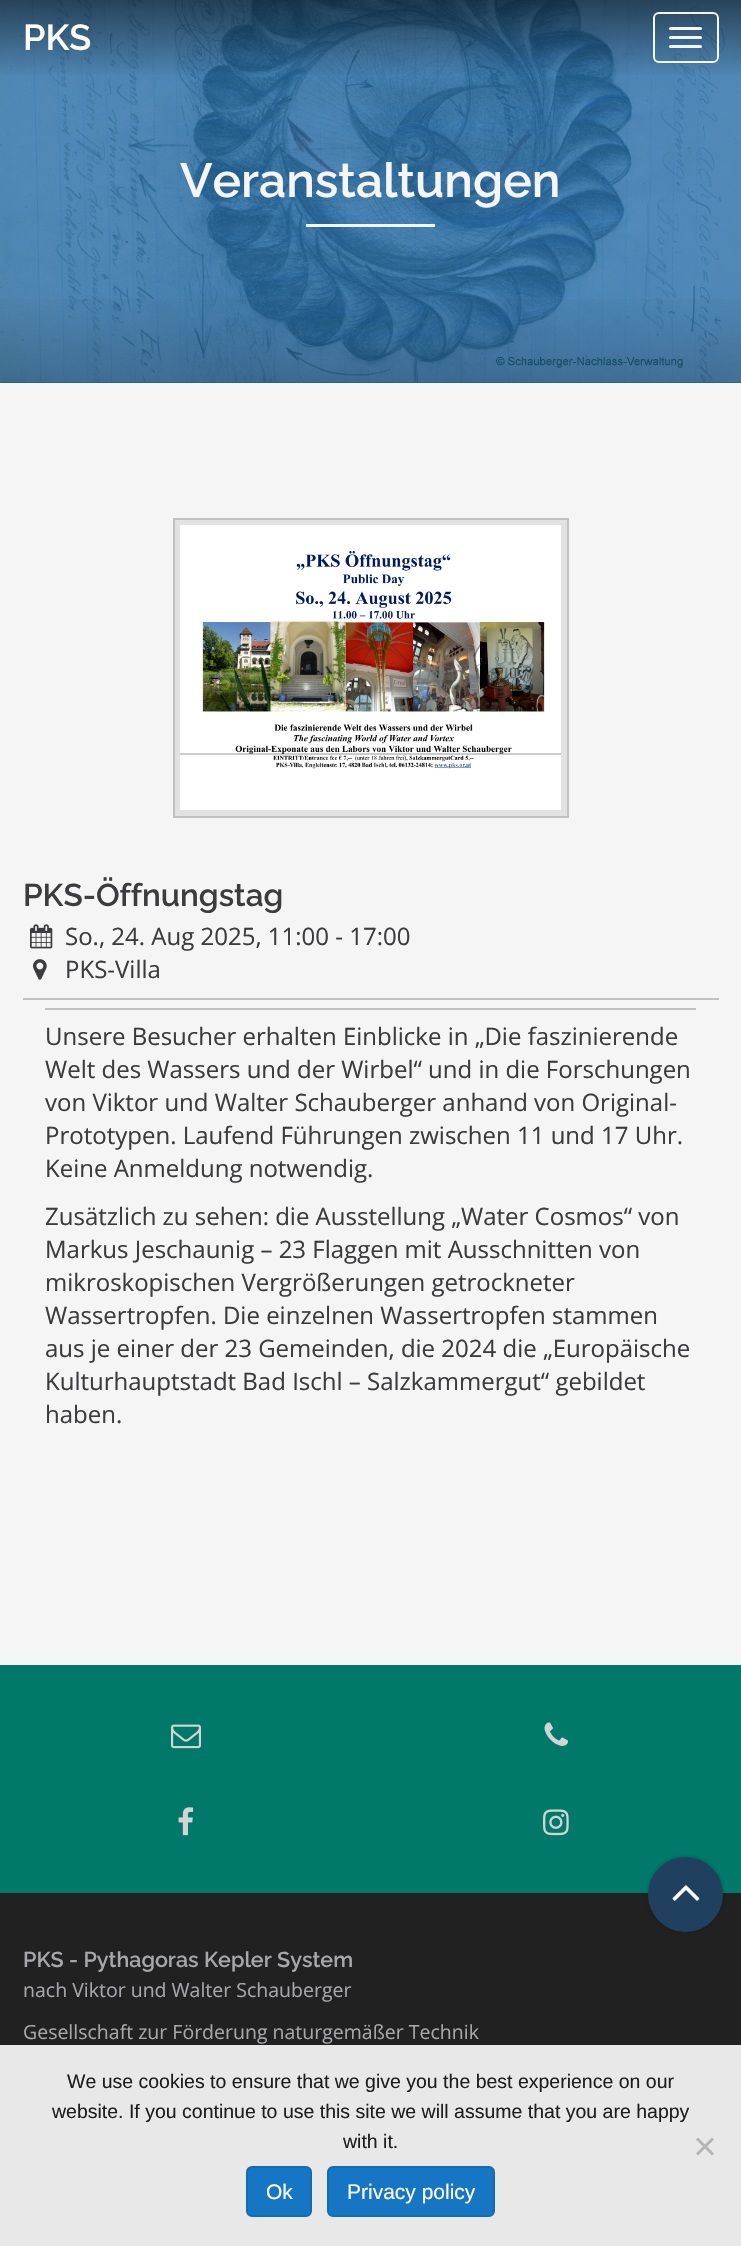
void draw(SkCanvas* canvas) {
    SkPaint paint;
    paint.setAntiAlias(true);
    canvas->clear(0xFF212121);
    paint.setColor(0xFF1676C3);
    canvas->drawRect(SkRect::MakeXYWH(0, 0, 741, 383), paint);
    canvas->drawImageRect(SkImages::DeferredFromEncodedData(SkData::MakeFromFileName("img1.png")), SkRect::MakeXYWH(0, 0, 741, 383), SkSamplingOptions());
    {
        const SkColor colors[] = {0x80000000, 0x00000000};
        const float stops[] = {0, 1};
        const SkPoint ends[] = {{371, 0}, {371, 78}};
        paint.setShader(SkGradientShader::MakeLinear(ends, colors, stops, 2, SkTileMode::kClamp));
        paint.setAlpha(255);
    }
    canvas->drawRect(SkRect::MakeXYWH(0, 0, 741, 75), paint);
    SkFont font1(fontMgr->matchFamilyStyle("Raleway", SkFontStyle(600, SkFontStyle::kNormal_Width, SkFontStyle::kUpright_Slant)), 36);
    font1.setSubpixel(true);
    paint.setShader(nullptr);
    paint.setColor(0xFFFFFFFF);
    canvas->drawString("PKS", 23, 50, font1, paint);
    paint.setStyle(SkPaint::kStroke_Style);
    paint.setStrokeWidth(2);
    paint.setColor(0xFFF5F5F5);
    canvas->drawRoundRect(SkRect::MakeXYWH(654, 13, 64, 49), 5, 5, paint);
    paint.setStyle(SkPaint::kFill_Style);
    canvas->drawRoundRect(SkRect::MakeXYWH(669, 27, 33, 3), 1.5f, 1.5f, paint);
    canvas->drawRoundRect(SkRect::MakeXYWH(669, 36, 33, 3), 1.5f, 1.5f, paint);
    canvas->drawRoundRect(SkRect::MakeXYWH(669, 45, 33, 3), 1.5f, 1.5f, paint);
    SkFont font2(fontMgr->matchFamilyStyle("Raleway", SkFontStyle(600, SkFontStyle::kNormal_Width, SkFontStyle::kUpright_Slant)), 48);
    font2.setSubpixel(true);
    canvas->drawString("Veranstaltungen", 180, 197, font2, paint);
    canvas->drawRect(SkRect::MakeXYWH(306, 224, 129, 3), paint);
    {
        const SkColor colors[] = {0x00000000, 0x29000000};
        const float stops[] = {0, 1};
        const SkPoint ends[] = {{371, 286}, {371, 383}};
        paint.setShader(SkGradientShader::MakeLinear(ends, colors, stops, 2, SkTileMode::kClamp));
        paint.setAlpha(255);
    }
    canvas->drawRect(SkRect::MakeXYWH(0, 299, 741, 84), paint);
    paint.setShader(nullptr);
    paint.setColor(0xFFF5F5F5);
    canvas->drawRect(SkRect::MakeXYWH(0, 383, 741, 1282), paint);
    paint.setColor(0xFFE2E2E2);
    canvas->drawRect(SkRect::MakeXYWH(174, 519, 394, 298), paint);
    paint.setStyle(SkPaint::kStroke_Style);
    paint.setColor(0xFFC2C2C2);
    canvas->drawRect(SkRect::MakeXYWH(174, 519, 394, 298), paint);
    canvas->drawImageRect(SkImages::DeferredFromEncodedData(SkData::MakeFromFileName("img2.png")), SkRect::MakeXYWH(180, 525, 381, 285), SkSamplingOptions());
    SkFont font3(fontMgr->matchFamilyStyle("Raleway", SkFontStyle(600, SkFontStyle::kNormal_Width, SkFontStyle::kUpright_Slant)), 31.5f);
    font3.setSubpixel(true);
    paint.setStyle(SkPaint::kFill_Style);
    paint.setColor(0xFF3C3C3F);
    canvas->drawString("PKS-Öffnungstag", 23, 906, font3, paint);
    canvas->drawImageRect(SkImages::DeferredFromEncodedData(SkData::MakeFromFileName("img3.png")), SkRect::MakeXYWH(30, 924, 23, 25), SkSamplingOptions());
    SkFont font4(fontMgr->matchFamilyStyle("Open Sans", SkFontStyle::Normal()), 24);
    font4.setSubpixel(true);
    canvas->drawString("So., 24. Aug 2025, 11:00 - 17:00", 65, 945, font4, paint);
    canvas->drawImageRect(SkImages::DeferredFromEncodedData(SkData::MakeFromFileName("img4.png")), SkRect::MakeXYWH(33, 959, 14, 21), SkSamplingOptions());
    canvas->drawString("PKS-Villa", 65, 978, font4, paint);
    paint.setColor(0xFFC2C2C2);
    canvas->drawRect(SkRect::MakeXYWH(23, 998, 696, 2), paint);
    canvas->drawRect(SkRect::MakeXYWH(45, 1008, 651, 2), paint);
    paint.setColor(0xFF3C3C3F);
    canvas->drawString("Unsere Besucher erhalten Einblicke in „Die faszinierende", 45, 1045, font4, paint);
    canvas->drawString("Welt des Wassers und der Wirbel“ und in die Forschungen", 45, 1078, font4, paint);
    canvas->drawString("von Viktor und Walter Schauberger anhand von Original-", 45, 1111, font4, paint);
    canvas->drawString("Prototypen. Laufend Führungen zwischen 11 und 17 Uhr.", 45, 1144, font4, paint);
    canvas->drawString("Keine Anmeldung notwendig.", 45, 1177, font4, paint);
    canvas->drawString("Zusätzlich zu sehen: die Ausstellung „Water Cosmos“ von", 45, 1225, font4, paint);
    canvas->drawString("Markus Jeschaunig – 23 Flaggen mit Ausschnitten von", 45, 1258, font4, paint);
    canvas->drawString("mikroskopischen Vergrößerungen getrockneter", 45, 1291, font4, paint);
    canvas->drawString("Wassertropfen. Die einzelnen Wassertropfen stammen", 45, 1324, font4, paint);
    canvas->drawString("aus je einer der 23 Gemeinden, die 2024 die „Europäische", 45, 1357, font4, paint);
    canvas->drawString("Kulturhauptstadt Bad Ischl – Salzkammergut“ gebildet", 45, 1390, font4, paint);
    canvas->drawString("haben.", 45, 1423, font4, paint);
    paint.setColor(0xFF00796B);
    canvas->drawRect(SkRect::MakeXYWH(0, 1665, 741, 228), paint);
    canvas->drawImageRect(SkImages::DeferredFromEncodedData(SkData::MakeFromFileName("img5.png")), SkRect::MakeXYWH(171, 1724, 30, 25), SkSamplingOptions());
    canvas->drawImageRect(SkImages::DeferredFromEncodedData(SkData::MakeFromFileName("img6.png")), SkRect::MakeXYWH(544, 1722, 24, 24), SkSamplingOptions());
    canvas->drawImageRect(SkImages::DeferredFromEncodedData(SkData::MakeFromFileName("img7.png")), SkRect::MakeXYWH(178, 1807, 16, 29), SkSamplingOptions());
    canvas->drawImageRect(SkImages::DeferredFromEncodedData(SkData::MakeFromFileName("img8.png")), SkRect::MakeXYWH(543, 1809, 26, 27), SkSamplingOptions());
    paint.setColor(0x3D000000);
    paint.setMaskFilter(SkMaskFilter::MakeBlur(kNormal_SkBlurStyle, 2));
    canvas->drawRoundRect(SkRect::MakeXYWH(648, 1857, 75, 75), 37.5f, 37.5f, paint);
    paint.setMaskFilter(nullptr);
    paint.setColor(0xFF204060);
    canvas->drawCircle(685.5f, 1894.5f, 37.5f, paint);
    canvas->drawImageRect(SkImages::DeferredFromEncodedData(SkData::MakeFromFileName("img9.png")), SkRect::MakeXYWH(672, 1885, 28, 16), SkSamplingOptions());
    SkFont font5(fontMgr->matchFamilyStyle("Raleway", SkFontStyle(600, SkFontStyle::kNormal_Width, SkFontStyle::kUpright_Slant)), 21.5f);
    font5.setSubpixel(true);
    paint.setColor(0xFFA6A7AB);
    canvas->drawString("PKS - Pythagoras Kepler System", 23, 1967, font5, paint);
    SkFont font6(fontMgr->matchFamilyStyle("Open Sans", SkFontStyle::Normal()), 19.5f);
    font6.setSubpixel(true);
    canvas->drawString("nach Viktor und Walter Schauberger", 23, 1997, font6, paint);
    canvas->drawString("Gesellschaft zur Förderung naturgemäßer Technik", 23, 2039, font6, paint);
    paint.setColor(0xFFE8E8E8);
    canvas->drawRect(SkRect::MakeXYWH(0, 2045, 741, 201), paint);
    SkFont font7(fontMgr->matchFamilyStyle("Liberation Sans", SkFontStyle::Normal()), 19.5f);
    font7.setSubpixel(true);
    paint.setColor(0xFF1E1E1E);
    canvas->drawString("We use cookies to ensure that we give you the best experience on our", 67, 2088, font7, paint);
    canvas->drawString("website. If you continue to use this site we will assume that you are happy", 52, 2118, font7, paint);
    canvas->drawString("with it.", 343, 2148, font7, paint);
    paint.setColor(0xFFB4B4B4);
    canvas->drawPath(SkPathBuilder().moveTo(712, 2137.5f).lineTo(714, 2139.5f).lineTo(698, 2155.5f).lineTo(696, 2153.5f).close().detach(), paint);
    canvas->drawPath(SkPathBuilder().moveTo(696, 2139.5f).lineTo(698, 2137.5f).lineTo(714, 2153.5f).lineTo(712, 2155.5f).close().detach(), paint);
    paint.setColor(0xFF1676C3);
    canvas->drawRoundRect(SkRect::MakeXYWH(247, 2167, 64, 49), 5, 5, paint);
    paint.setStyle(SkPaint::kStroke_Style);
    paint.setColor(0xFF146BB1);
    canvas->drawRoundRect(SkRect::MakeXYWH(247, 2167, 64, 49), 5, 5, paint);
    SkFont font8(fontMgr->matchFamilyStyle("Liberation Sans", SkFontStyle::Normal()), 21);
    font8.setSubpixel(true);
    paint.setStyle(SkPaint::kFill_Style);
    paint.setColor(0xFFFFFFFF);
    canvas->drawString("Ok", 266, 2199, font8, paint);
    paint.setColor(0xFF1676C3);
    canvas->drawRoundRect(SkRect::MakeXYWH(328, 2167, 166, 49), 5, 5, paint);
    paint.setStyle(SkPaint::kStroke_Style);
    paint.setColor(0xFF146BB1);
    canvas->drawRoundRect(SkRect::MakeXYWH(328, 2167, 166, 49), 5, 5, paint);
    paint.setStyle(SkPaint::kFill_Style);
    paint.setColor(0xFFFFFFFF);
    canvas->drawString("Privacy policy", 347, 2199, font8, paint);
}
